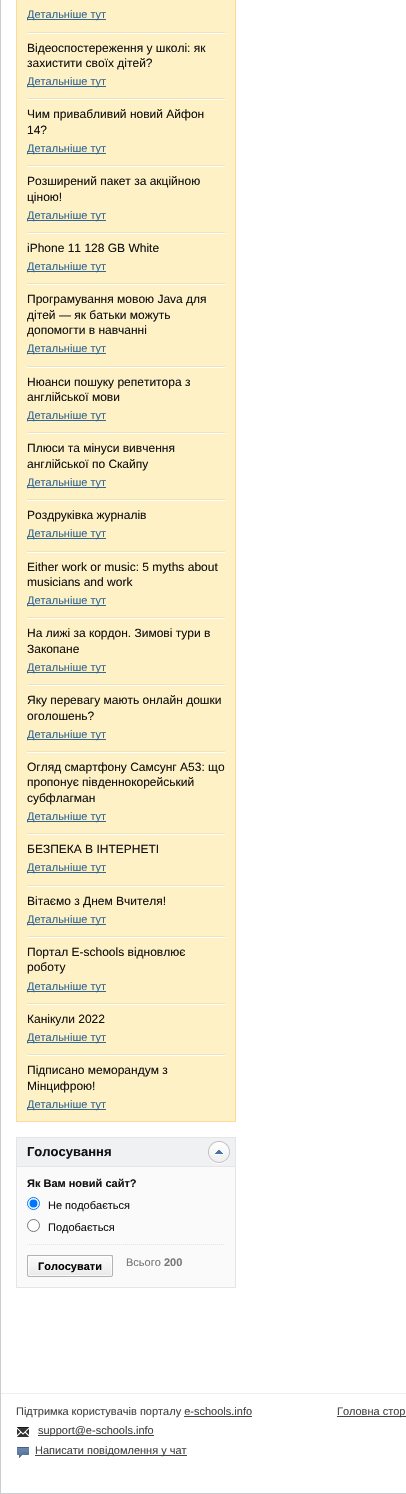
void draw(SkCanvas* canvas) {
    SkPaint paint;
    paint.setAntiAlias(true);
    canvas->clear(0xFFFFFFFF);
    paint.setStyle(SkPaint::kStroke_Style);
    paint.setStrokeWidth(1);
    paint.setColor(0xFFCBCDD0);
    canvas->drawRect(SkRect::MakeXYWH(0.5f, -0.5f, 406, 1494), paint);
    paint.setStyle(SkPaint::kFill_Style);
    paint.setColor(0xFFFFF1C6);
    canvas->drawRect(SkRect::MakeXYWH(16.5f, -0.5f, 219, 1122), paint);
    paint.setStyle(SkPaint::kStroke_Style);
    paint.setColor(0xFFFEDA99);
    canvas->drawRect(SkRect::MakeXYWH(16.5f, -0.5f, 219, 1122), paint);
    paint.setStyle(SkPaint::kFill_Style);
    paint.setColor(0xFFF0E3BA);
    canvas->drawRect(SkRect::MakeXYWH(27, 32, 198, 1), paint);
    paint.setColor(0xFF326693);
    canvas->drawRect(SkRect::MakeXYWH(27, 19, 79, 1), paint);
    SkFont font1(fontMgr->matchFamilyStyle("Liberation Sans", SkFontStyle::Normal()), 11);
    font1.setSubpixel(true);
    canvas->drawString("Детальніше тут", 27, 18, font1, paint);
    paint.setColor(0xFFFFFFFF);
    canvas->drawRect(SkRect::MakeXYWH(27, 33, 198, 1), paint);
    paint.setColor(0xFFF0E3BA);
    canvas->drawRect(SkRect::MakeXYWH(27, 98, 198, 1), paint);
    SkFont font2(fontMgr->matchFamilyStyle("Liberation Sans", SkFontStyle::Normal()), 12);
    font2.setSubpixel(true);
    paint.setColor(0xFF111111);
    canvas->drawString("Відеоспостереження у школі: як", 27, 52, font2, paint);
    canvas->drawString("захистити своїх дітей?", 27, 67, font2, paint);
    paint.setColor(0xFF326693);
    canvas->drawRect(SkRect::MakeXYWH(27, 86, 79, 1), paint);
    canvas->drawString("Детальніше тут", 27, 85, font1, paint);
    paint.setColor(0xFFFFFFFF);
    canvas->drawRect(SkRect::MakeXYWH(27, 99, 198, 1), paint);
    paint.setColor(0xFFF0E3BA);
    canvas->drawRect(SkRect::MakeXYWH(27, 165, 198, 1), paint);
    paint.setColor(0xFF111111);
    canvas->drawString("Чим привабливий новий Айфон", 27, 118, font2, paint);
    canvas->drawString("14?", 27, 134, font2, paint);
    paint.setColor(0xFF326693);
    canvas->drawRect(SkRect::MakeXYWH(27, 153, 79, 1), paint);
    canvas->drawString("Детальніше тут", 27, 152, font1, paint);
    paint.setColor(0xFFFFFFFF);
    canvas->drawRect(SkRect::MakeXYWH(27, 166, 198, 1), paint);
    paint.setColor(0xFFF0E3BA);
    canvas->drawRect(SkRect::MakeXYWH(27, 232, 198, 1), paint);
    paint.setColor(0xFF111111);
    canvas->drawString("Розширений пакет за акційною", 27, 185, font2, paint);
    canvas->drawString("ціною!", 27, 201, font2, paint);
    paint.setColor(0xFF326693);
    canvas->drawRect(SkRect::MakeXYWH(27, 220, 79, 1), paint);
    canvas->drawString("Детальніше тут", 27, 219, font1, paint);
    paint.setColor(0xFFFFFFFF);
    canvas->drawRect(SkRect::MakeXYWH(27, 233, 198, 1), paint);
    paint.setColor(0xFFF0E3BA);
    canvas->drawRect(SkRect::MakeXYWH(27, 283, 198, 1), paint);
    paint.setColor(0xFF111111);
    canvas->drawString("iPhone 11 128 GB White", 27, 252, font2, paint);
    paint.setColor(0xFF326693);
    canvas->drawRect(SkRect::MakeXYWH(27, 271, 79, 1), paint);
    canvas->drawString("Детальніше тут", 27, 270, font1, paint);
    paint.setColor(0xFFFFFFFF);
    canvas->drawRect(SkRect::MakeXYWH(27, 284, 198, 1), paint);
    paint.setColor(0xFFF0E3BA);
    canvas->drawRect(SkRect::MakeXYWH(27, 366, 198, 1), paint);
    paint.setColor(0xFF111111);
    canvas->drawString("Програмування мовою Java для", 27, 303, font2, paint);
    canvas->drawString("дітей — як батьки можуть", 27, 319, font2, paint);
    canvas->drawString("допомогти в навчанні", 27, 334, font2, paint);
    paint.setColor(0xFF326693);
    canvas->drawRect(SkRect::MakeXYWH(27, 353, 79, 1), paint);
    canvas->drawString("Детальніше тут", 27, 352, font1, paint);
    paint.setColor(0xFFFFFFFF);
    canvas->drawRect(SkRect::MakeXYWH(27, 367, 198, 1), paint);
    paint.setColor(0xFFF0E3BA);
    canvas->drawRect(SkRect::MakeXYWH(27, 432, 198, 1), paint);
    paint.setColor(0xFF111111);
    canvas->drawString("Нюанси пошуку репетитора з", 27, 386, font2, paint);
    canvas->drawString("англійської мови", 27, 401, font2, paint);
    paint.setColor(0xFF326693);
    canvas->drawRect(SkRect::MakeXYWH(27, 420, 79, 1), paint);
    canvas->drawString("Детальніше тут", 27, 419, font1, paint);
    paint.setColor(0xFFFFFFFF);
    canvas->drawRect(SkRect::MakeXYWH(27, 433, 198, 1), paint);
    paint.setColor(0xFFF0E3BA);
    canvas->drawRect(SkRect::MakeXYWH(27, 499, 198, 1), paint);
    paint.setColor(0xFF111111);
    canvas->drawString("Плюси та мінуси вивчення", 27, 452, font2, paint);
    canvas->drawString("англійської по Скайпу", 27, 468, font2, paint);
    paint.setColor(0xFF326693);
    canvas->drawRect(SkRect::MakeXYWH(27, 487, 79, 1), paint);
    canvas->drawString("Детальніше тут", 27, 486, font1, paint);
    paint.setColor(0xFFFFFFFF);
    canvas->drawRect(SkRect::MakeXYWH(27, 500, 198, 1), paint);
    paint.setColor(0xFFF0E3BA);
    canvas->drawRect(SkRect::MakeXYWH(27, 551, 198, 1), paint);
    paint.setColor(0xFF111111);
    canvas->drawString("Роздруківка журналів", 27, 519, font2, paint);
    paint.setColor(0xFF326693);
    canvas->drawRect(SkRect::MakeXYWH(27, 538, 79, 1), paint);
    canvas->drawString("Детальніше тут", 27, 537, font1, paint);
    paint.setColor(0xFFFFFFFF);
    canvas->drawRect(SkRect::MakeXYWH(27, 552, 198, 1), paint);
    paint.setColor(0xFFF0E3BA);
    canvas->drawRect(SkRect::MakeXYWH(27, 617, 198, 1), paint);
    paint.setColor(0xFF111111);
    canvas->drawString("Either work or music: 5 myths about", 27, 571, font2, paint);
    canvas->drawString("musicians and work", 27, 586, font2, paint);
    paint.setColor(0xFF326693);
    canvas->drawRect(SkRect::MakeXYWH(27, 605, 79, 1), paint);
    canvas->drawString("Детальніше тут", 27, 604, font1, paint);
    paint.setColor(0xFFFFFFFF);
    canvas->drawRect(SkRect::MakeXYWH(27, 618, 198, 1), paint);
    paint.setColor(0xFFF0E3BA);
    canvas->drawRect(SkRect::MakeXYWH(27, 684, 198, 1), paint);
    paint.setColor(0xFF111111);
    canvas->drawString("На лижі за кордон. Зимові тури в", 27, 637, font2, paint);
    canvas->drawString("Закопане", 27, 653, font2, paint);
    paint.setColor(0xFF326693);
    canvas->drawRect(SkRect::MakeXYWH(27, 672, 79, 1), paint);
    canvas->drawString("Детальніше тут", 27, 671, font1, paint);
    paint.setColor(0xFFFFFFFF);
    canvas->drawRect(SkRect::MakeXYWH(27, 685, 198, 1), paint);
    paint.setColor(0xFFF0E3BA);
    canvas->drawRect(SkRect::MakeXYWH(27, 751, 198, 1), paint);
    paint.setColor(0xFF111111);
    canvas->drawString("Яку перевагу мають онлайн дошки", 27, 704, font2, paint);
    canvas->drawString("оголошень?", 27, 720, font2, paint);
    paint.setColor(0xFF326693);
    canvas->drawRect(SkRect::MakeXYWH(27, 739, 79, 1), paint);
    canvas->drawString("Детальніше тут", 27, 738, font1, paint);
    paint.setColor(0xFFFFFFFF);
    canvas->drawRect(SkRect::MakeXYWH(27, 752, 198, 1), paint);
    paint.setColor(0xFFF0E3BA);
    canvas->drawRect(SkRect::MakeXYWH(27, 833, 198, 1), paint);
    paint.setColor(0xFF111111);
    canvas->drawString("Огляд смартфону Самсунг А53: що", 27, 771, font2, paint);
    canvas->drawString("пропонує південнокорейський", 27, 786, font2, paint);
    canvas->drawString("субфлагман", 27, 802, font2, paint);
    paint.setColor(0xFF326693);
    canvas->drawRect(SkRect::MakeXYWH(27, 821, 79, 1), paint);
    canvas->drawString("Детальніше тут", 27, 820, font1, paint);
    paint.setColor(0xFFFFFFFF);
    canvas->drawRect(SkRect::MakeXYWH(27, 834, 198, 1), paint);
    paint.setColor(0xFFF0E3BA);
    canvas->drawRect(SkRect::MakeXYWH(27, 885, 198, 1), paint);
    paint.setColor(0xFF111111);
    canvas->drawString("БЕЗПЕКА В ІНТЕРНЕТІ", 27, 853, font2, paint);
    paint.setColor(0xFF326693);
    canvas->drawRect(SkRect::MakeXYWH(27, 872, 79, 1), paint);
    canvas->drawString("Детальніше тут", 27, 871, font1, paint);
    paint.setColor(0xFFFFFFFF);
    canvas->drawRect(SkRect::MakeXYWH(27, 886, 198, 1), paint);
    paint.setColor(0xFFF0E3BA);
    canvas->drawRect(SkRect::MakeXYWH(27, 936, 198, 1), paint);
    paint.setColor(0xFF111111);
    canvas->drawString("Вітаємо з Днем Вчителя!", 27, 905, font2, paint);
    paint.setColor(0xFF326693);
    canvas->drawRect(SkRect::MakeXYWH(27, 924, 79, 1), paint);
    canvas->drawString("Детальніше тут", 27, 923, font1, paint);
    paint.setColor(0xFFFFFFFF);
    canvas->drawRect(SkRect::MakeXYWH(27, 937, 198, 1), paint);
    paint.setColor(0xFFF0E3BA);
    canvas->drawRect(SkRect::MakeXYWH(27, 1003, 198, 1), paint);
    paint.setColor(0xFF111111);
    canvas->drawString("Портал E-schools відновлює", 27, 956, font2, paint);
    canvas->drawString("роботу", 27, 971, font2, paint);
    paint.setColor(0xFF326693);
    canvas->drawRect(SkRect::MakeXYWH(27, 991, 79, 1), paint);
    canvas->drawString("Детальніше тут", 27, 990, font1, paint);
    paint.setColor(0xFFFFFFFF);
    canvas->drawRect(SkRect::MakeXYWH(27, 1004, 198, 1), paint);
    paint.setColor(0xFFF0E3BA);
    canvas->drawRect(SkRect::MakeXYWH(27, 1054, 198, 1), paint);
    paint.setColor(0xFF111111);
    canvas->drawString("Канікули 2022", 27, 1023, font2, paint);
    paint.setColor(0xFF326693);
    canvas->drawRect(SkRect::MakeXYWH(27, 1042, 79, 1), paint);
    canvas->drawString("Детальніше тут", 27, 1041, font1, paint);
    paint.setColor(0xFFFFFFFF);
    canvas->drawRect(SkRect::MakeXYWH(27, 1055, 198, 1), paint);
    paint.setColor(0xFF111111);
    canvas->drawString("Підписано меморандум з", 27, 1074, font2, paint);
    canvas->drawString("Мінцифрою!", 27, 1090, font2, paint);
    paint.setColor(0xFF326693);
    canvas->drawRect(SkRect::MakeXYWH(27, 1109, 79, 1), paint);
    canvas->drawString("Детальніше тут", 27, 1108, font1, paint);
    paint.setColor(0xFFFAFAFA);
    canvas->drawRect(SkRect::MakeXYWH(17, 1167, 218, 120), paint);
    paint.setStyle(SkPaint::kStroke_Style);
    paint.setColor(0xFFE5E5E5);
    canvas->drawRect(SkRect::MakeXYWH(16.5f, 1137.5f, 219, 150), paint);
    paint.setStyle(SkPaint::kFill_Style);
    paint.setColor(0xFFEFF1F2);
    canvas->drawRect(SkRect::MakeXYWH(17, 1138, 218, 28), paint);
    paint.setColor(0xFFE5E5E5);
    canvas->drawRect(SkRect::MakeXYWH(17, 1166, 218, 1), paint);
    SkFont font3(fontMgr->matchFamilyStyle("Liberation Sans", SkFontStyle::Bold()), 13);
    font3.setSubpixel(true);
    paint.setColor(0xFF111111);
    canvas->drawString("Голосування", 27, 1156, font3, paint);
    canvas->drawImageRect(SkImages::DeferredFromEncodedData(SkData::MakeFromFileName("img1.png")), SkRect::MakeXYWH(208, 1141, 22, 23), SkSamplingOptions());
    SkFont font4(fontMgr->matchFamilyStyle("Liberation Sans", SkFontStyle::Bold()), 11);
    font4.setSubpixel(true);
    canvas->drawString("Як Вам новий сайт?", 27, 1187, font4, paint);
    paint.setColor(0xFFFFFFFF);
    canvas->drawCircle(33.5f, 1203.5f, 6, paint);
    paint.setStyle(SkPaint::kStroke_Style);
    paint.setColor(0xFF0075FF);
    canvas->drawCircle(33.5f, 1203.5f, 6, paint);
    paint.setStyle(SkPaint::kFill_Style);
    canvas->drawCircle(33.5f, 1203.5f, 4, paint);
    paint.setColor(0xFF111111);
    canvas->drawString("Не подобається", 48, 1209, font1, paint);
    paint.setColor(0xFFFFFFFF);
    canvas->drawCircle(33.5f, 1225.5f, 6, paint);
    paint.setStyle(SkPaint::kStroke_Style);
    paint.setColor(0xFF767676);
    canvas->drawCircle(33.5f, 1225.5f, 6, paint);
    paint.setStyle(SkPaint::kFill_Style);
    paint.setColor(0xFF111111);
    canvas->drawString("Подобається", 48, 1231, font1, paint);
    paint.setStyle(SkPaint::kStroke_Style);
    paint.setColor(0xFFE5E5E5);
    paint.setPathEffect(SkDashPathEffect::Make({{1, 1}}, 0));
    canvas->drawPath(SkPathBuilder().moveTo(27, 1244.5f).lineTo(225, 1244.5f).detach(), paint);
    paint.setPathEffect(nullptr);
    canvas->drawImageRect(SkImages::DeferredFromEncodedData(SkData::MakeFromFileName("img2.png")), SkRect::MakeXYWH(27, 1255, 86, 22), SkSamplingOptions());
    paint.setColor(0xB3FFFFFF);
    canvas->drawRoundRect(SkRect::MakeXYWH(28.5f, 1256.5f, 83, 19), 0.5f, 0.5f, paint);
    paint.setColor(0xFFB3B3B3);
    canvas->drawRoundRect(SkRect::MakeXYWH(27.5f, 1255.5f, 85, 21), 1.5f, 1.5f, paint);
    paint.setStyle(SkPaint::kFill_Style);
    paint.setColor(0xFF000000);
    canvas->drawString("Голосувати", 38, 1270, font4, paint);
    paint.setColor(0xFF777777);
    canvas->drawString("Всього", 126, 1266, font1, paint);
    canvas->drawString("200", 164, 1266, font4, paint);
    paint.setColor(0xFFEEEEEE);
    canvas->drawRect(SkRect::MakeXYWH(1, 1393, 405, 1), paint);
    paint.setColor(0xFF444444);
    canvas->drawString("Підтримка користувачів порталу e-schools.info", 16, 1415, font1, paint);
    canvas->drawRect(SkRect::MakeXYWH(184, 1416, 68, 1), paint);
    canvas->drawImageRect(SkImages::DeferredFromEncodedData(SkData::MakeFromFileName("img3.png")), SkRect::MakeXYWH(17, 1427, 12, 10), SkSamplingOptions());
    canvas->drawRect(SkRect::MakeXYWH(38, 1435, 116, 1), paint);
    canvas->drawString("support@e-schools.info", 38, 1434, font1, paint);
    canvas->drawImageRect(SkImages::DeferredFromEncodedData(SkData::MakeFromFileName("img4.png")), SkRect::MakeXYWH(17, 1447, 12, 11), SkSamplingOptions());
    canvas->drawRect(SkRect::MakeXYWH(35, 1455, 152, 1), paint);
    canvas->drawString("Написати повідомлення у чат", 35, 1454, font1, paint);
    canvas->drawRect(SkRect::MakeXYWH(337, 1416, 69, 1), paint);
    canvas->drawString("Головна стор", 337, 1415, font1, paint);
}
